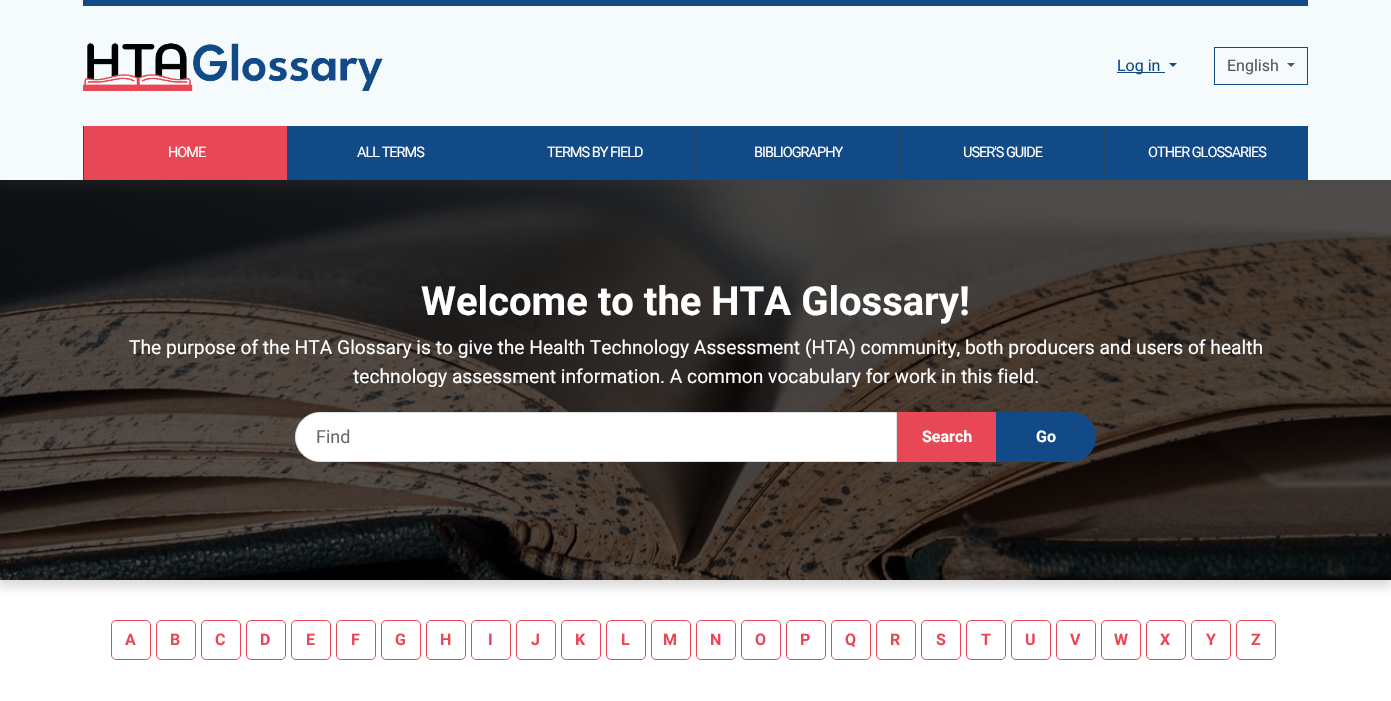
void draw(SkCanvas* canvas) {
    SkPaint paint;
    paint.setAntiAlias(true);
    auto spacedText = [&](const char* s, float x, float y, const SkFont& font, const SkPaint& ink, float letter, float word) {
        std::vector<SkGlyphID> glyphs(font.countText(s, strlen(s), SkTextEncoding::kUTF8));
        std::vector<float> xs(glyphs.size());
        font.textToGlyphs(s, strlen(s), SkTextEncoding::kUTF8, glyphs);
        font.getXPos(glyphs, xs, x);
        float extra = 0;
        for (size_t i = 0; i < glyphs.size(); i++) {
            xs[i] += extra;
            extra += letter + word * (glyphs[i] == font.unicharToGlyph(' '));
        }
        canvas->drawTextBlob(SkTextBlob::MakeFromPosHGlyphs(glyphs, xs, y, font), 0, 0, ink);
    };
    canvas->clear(0xFFFFFFFF);
    paint.setColor(0x33444444);
    paint.setMaskFilter(SkMaskFilter::MakeBlur(kNormal_SkBlurStyle, 5));
    canvas->drawRect(SkRect::MakeXYWH(-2, 183, 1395, 404), paint);
    paint.setMaskFilter(nullptr);
    canvas->drawImageRect(SkImages::DeferredFromEncodedData(SkData::MakeFromFileName("img2.png")), SkRect::MakeXYWH(0, 180, 1391, 400), SkSamplingOptions());
    paint.setMaskFilter(SkMaskFilter::MakeBlur(kNormal_SkBlurStyle, 5));
    canvas->drawRect(SkRect::MakeXYWH(-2, 3, 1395, 184), paint);
    paint.setMaskFilter(nullptr);
    paint.setColor(0xFFF5FAFC);
    canvas->drawRect(SkRect::MakeXYWH(0, 0, 1391, 180), paint);
    paint.setColor(0xFF124987);
    canvas->drawRect(SkRect::MakeXYWH(83, 0, 1225, 6), paint);
    canvas->drawImageRect(SkImages::DeferredFromEncodedData(SkData::MakeFromFileName("img1.png")), SkRect::MakeXYWH(83, 43, 300, 48), SkSamplingOptions());
    canvas->drawRect(SkRect::MakeXYWH(1117, 72, 48, 1), paint);
    SkFont font1(fontMgr->matchFamilyStyle("Roboto", SkFontStyle::Normal()), 16);
    font1.setSubpixel(true);
    canvas->drawString("Log in", 1117, 71, font1, paint);
    canvas->drawPath(SkPathBuilder().moveTo(1169, 63).lineTo(1177, 63).lineTo(1173, 67).close().detach(), paint);
    paint.setStyle(SkPaint::kStroke_Style);
    paint.setStrokeWidth(1);
    canvas->drawRect(SkRect::MakeXYWH(1214.5f, 47.5f, 93, 37), paint);
    paint.setStyle(SkPaint::kFill_Style);
    paint.setColor(0xFF565858);
    canvas->drawString("English", 1227, 71, font1, paint);
    canvas->drawPath(SkPathBuilder().moveTo(1287, 63).lineTo(1295, 63).lineTo(1291, 67).close().detach(), paint);
    paint.setColor(0xFF124987);
    canvas->drawRect(SkRect::MakeXYWH(288, 126, 1020, 54), paint);
    paint.setColor(0xFFE84855);
    canvas->drawRect(SkRect::MakeXYWH(84, 126, 203, 54), paint);
    paint.setColor(0xFF244B66);
    canvas->drawRect(SkRect::MakeXYWH(83, 126, 1, 54), paint);
    SkFont font2(fontMgr->matchFamilyStyle("Roboto", SkFontStyle::Normal()), 14.5f);
    font2.setSubpixel(true);
    paint.setColor(0xFFFFFFFF);
    spacedText("HOME", 168, 157, font2, paint, -1, 0);
    paint.setColor(0xFF244B66);
    canvas->drawRect(SkRect::MakeXYWH(287, 126, 1, 54), paint);
    paint.setColor(0xFFFFFFFF);
    spacedText("ALL TERMS", 357, 157, font2, paint, -1, 0);
    paint.setColor(0xFF244B66);
    canvas->drawRect(SkRect::MakeXYWH(491, 126, 1, 54), paint);
    paint.setColor(0xFFFFFFFF);
    spacedText("TERMS BY FIELD", 547, 157, font2, paint, -1, 0);
    paint.setColor(0xFF244B66);
    canvas->drawRect(SkRect::MakeXYWH(696, 126, 1, 54), paint);
    paint.setColor(0xFFFFFFFF);
    spacedText("BIBLIOGRAPHY", 754, 157, font2, paint, -1, 0);
    paint.setColor(0xFF244B66);
    canvas->drawRect(SkRect::MakeXYWH(900, 126, 1, 54), paint);
    paint.setColor(0xFFFFFFFF);
    spacedText("USER'S GUIDE", 963, 157, font2, paint, -1, 0);
    paint.setColor(0xFF244B66);
    canvas->drawRect(SkRect::MakeXYWH(1104, 126, 1, 54), paint);
    paint.setColor(0xFFFFFFFF);
    spacedText("OTHER GLOSSARIES", 1148, 157, font2, paint, -1, 0);
    SkFont font3(fontMgr->matchFamilyStyle("Roboto", SkFontStyle::Bold()), 40);
    font3.setSubpixel(true);
    canvas->drawString("Welcome to the HTA Glossary!", 421, 315, font3, paint);
    SkFont font4(fontMgr->matchFamilyStyle("Roboto", SkFontStyle::Normal()), 19.2f);
    font4.setSubpixel(true);
    canvas->drawString("The purpose of the HTA Glossary is to give the Health Technology Assessment (HTA) community, both producers and users of health", 129, 354, font4, paint);
    canvas->drawString("technology assessment information. A common vocabulary for work in this field.", 353, 383, font4, paint);
    canvas->drawPath(SkPathBuilder().moveTo(320, 412.5f).lineTo(896.5f, 412.5f).lineTo(896.5f, 461.5f).lineTo(320, 461.5f).cubicTo(306.5f, 461.5f, 295.5f, 450.5f, 295.5f, 437).cubicTo(295.5f, 423.5f, 306.5f, 412.5f, 320, 412.5f).close().detach(), paint);
    paint.setStyle(SkPaint::kStroke_Style);
    paint.setColor(0xFFDEE2E6);
    canvas->drawPath(SkPathBuilder().moveTo(320, 412.5f).lineTo(896.5f, 412.5f).lineTo(896.5f, 461.5f).lineTo(320, 461.5f).cubicTo(306.5f, 461.5f, 295.5f, 450.5f, 295.5f, 437).cubicTo(295.5f, 423.5f, 306.5f, 412.5f, 320, 412.5f).close().detach(), paint);
    SkFont font5(fontMgr->matchFamilyStyle("Roboto", SkFontStyle::Normal()), 18);
    font5.setSubpixel(true);
    paint.setStyle(SkPaint::kFill_Style);
    paint.setColor(0xFF696B6D);
    canvas->drawString("Find", 316, 443, font5, paint);
    paint.setColor(0xFFE84855);
    canvas->drawRect(SkRect::MakeXYWH(897, 412, 99, 50), paint);
    SkFont font6(fontMgr->matchFamilyStyle("Roboto", SkFontStyle::Bold()), 16);
    font6.setSubpixel(true);
    paint.setColor(0xFFFFFFFF);
    canvas->drawString("Search", 922, 442, font6, paint);
    paint.setColor(0xFF124987);
    canvas->drawPath(SkPathBuilder().moveTo(996, 412).lineTo(1071, 412).cubicTo(1085, 412, 1096, 423, 1096, 437).cubicTo(1096, 451, 1085, 462, 1071, 462).lineTo(996, 462).close().detach(), paint);
    paint.setColor(0xFFFFFFFF);
    canvas->drawString("Go", 1036, 442, font6, paint);
    paint.setStyle(SkPaint::kStroke_Style);
    paint.setColor(0xFFE84855);
    canvas->drawRoundRect(SkRect::MakeXYWH(111.5f, 620.5f, 39, 39), 4.5f, 4.5f, paint);
    paint.setStyle(SkPaint::kFill_Style);
    canvas->drawString("A", 125, 645, font6, paint);
    paint.setStyle(SkPaint::kStroke_Style);
    canvas->drawRoundRect(SkRect::MakeXYWH(156.5f, 620.5f, 39, 39), 4.5f, 4.5f, paint);
    paint.setStyle(SkPaint::kFill_Style);
    canvas->drawString("B", 170, 645, font6, paint);
    paint.setStyle(SkPaint::kStroke_Style);
    canvas->drawRoundRect(SkRect::MakeXYWH(201.5f, 620.5f, 39, 39), 4.5f, 4.5f, paint);
    paint.setStyle(SkPaint::kFill_Style);
    canvas->drawString("C", 215, 645, font6, paint);
    paint.setStyle(SkPaint::kStroke_Style);
    canvas->drawRoundRect(SkRect::MakeXYWH(246.5f, 620.5f, 39, 39), 4.5f, 4.5f, paint);
    paint.setStyle(SkPaint::kFill_Style);
    canvas->drawString("D", 260, 645, font6, paint);
    paint.setStyle(SkPaint::kStroke_Style);
    canvas->drawRoundRect(SkRect::MakeXYWH(291.5f, 620.5f, 39, 39), 4.5f, 4.5f, paint);
    paint.setStyle(SkPaint::kFill_Style);
    canvas->drawString("E", 306, 645, font6, paint);
    paint.setStyle(SkPaint::kStroke_Style);
    canvas->drawRoundRect(SkRect::MakeXYWH(336.5f, 620.5f, 39, 39), 4.5f, 4.5f, paint);
    paint.setStyle(SkPaint::kFill_Style);
    canvas->drawString("F", 351, 645, font6, paint);
    paint.setStyle(SkPaint::kStroke_Style);
    canvas->drawRoundRect(SkRect::MakeXYWH(381.5f, 620.5f, 39, 39), 4.5f, 4.5f, paint);
    paint.setStyle(SkPaint::kFill_Style);
    canvas->drawString("G", 395, 645, font6, paint);
    paint.setStyle(SkPaint::kStroke_Style);
    canvas->drawRoundRect(SkRect::MakeXYWH(426.5f, 620.5f, 39, 39), 4.5f, 4.5f, paint);
    paint.setStyle(SkPaint::kFill_Style);
    canvas->drawString("H", 440, 645, font6, paint);
    paint.setStyle(SkPaint::kStroke_Style);
    canvas->drawRoundRect(SkRect::MakeXYWH(471.5f, 620.5f, 39, 39), 4.5f, 4.5f, paint);
    paint.setStyle(SkPaint::kFill_Style);
    canvas->drawString("I", 488, 645, font6, paint);
    paint.setStyle(SkPaint::kStroke_Style);
    canvas->drawRoundRect(SkRect::MakeXYWH(516.5f, 620.5f, 39, 39), 4.5f, 4.5f, paint);
    paint.setStyle(SkPaint::kFill_Style);
    canvas->drawString("J", 531, 645, font6, paint);
    paint.setStyle(SkPaint::kStroke_Style);
    canvas->drawRoundRect(SkRect::MakeXYWH(561.5f, 620.5f, 39, 39), 4.5f, 4.5f, paint);
    paint.setStyle(SkPaint::kFill_Style);
    canvas->drawString("K", 575, 645, font6, paint);
    paint.setStyle(SkPaint::kStroke_Style);
    canvas->drawRoundRect(SkRect::MakeXYWH(606.5f, 620.5f, 39, 39), 4.5f, 4.5f, paint);
    paint.setStyle(SkPaint::kFill_Style);
    canvas->drawString("L", 621, 645, font6, paint);
    paint.setStyle(SkPaint::kStroke_Style);
    canvas->drawRoundRect(SkRect::MakeXYWH(651.5f, 620.5f, 39, 39), 4.5f, 4.5f, paint);
    paint.setStyle(SkPaint::kFill_Style);
    canvas->drawString("M", 663, 645, font6, paint);
    paint.setStyle(SkPaint::kStroke_Style);
    canvas->drawRoundRect(SkRect::MakeXYWH(696.5f, 620.5f, 39, 39), 4.5f, 4.5f, paint);
    paint.setStyle(SkPaint::kFill_Style);
    canvas->drawString("N", 710, 645, font6, paint);
    paint.setStyle(SkPaint::kStroke_Style);
    canvas->drawRoundRect(SkRect::MakeXYWH(741.5f, 620.5f, 39, 39), 4.5f, 4.5f, paint);
    paint.setStyle(SkPaint::kFill_Style);
    canvas->drawString("O", 755, 645, font6, paint);
    paint.setStyle(SkPaint::kStroke_Style);
    canvas->drawRoundRect(SkRect::MakeXYWH(786.5f, 620.5f, 39, 39), 4.5f, 4.5f, paint);
    paint.setStyle(SkPaint::kFill_Style);
    canvas->drawString("P", 800, 645, font6, paint);
    paint.setStyle(SkPaint::kStroke_Style);
    canvas->drawRoundRect(SkRect::MakeXYWH(831.5f, 620.5f, 39, 39), 4.5f, 4.5f, paint);
    paint.setStyle(SkPaint::kFill_Style);
    canvas->drawString("Q", 845, 645, font6, paint);
    paint.setStyle(SkPaint::kStroke_Style);
    canvas->drawRoundRect(SkRect::MakeXYWH(876.5f, 620.5f, 39, 39), 4.5f, 4.5f, paint);
    paint.setStyle(SkPaint::kFill_Style);
    canvas->drawString("R", 890, 645, font6, paint);
    paint.setStyle(SkPaint::kStroke_Style);
    canvas->drawRoundRect(SkRect::MakeXYWH(921.5f, 620.5f, 39, 39), 4.5f, 4.5f, paint);
    paint.setStyle(SkPaint::kFill_Style);
    canvas->drawString("S", 936, 645, font6, paint);
    paint.setStyle(SkPaint::kStroke_Style);
    canvas->drawRoundRect(SkRect::MakeXYWH(966.5f, 620.5f, 39, 39), 4.5f, 4.5f, paint);
    paint.setStyle(SkPaint::kFill_Style);
    canvas->drawString("T", 981, 645, font6, paint);
    paint.setStyle(SkPaint::kStroke_Style);
    canvas->drawRoundRect(SkRect::MakeXYWH(1011.5f, 620.5f, 39, 39), 4.5f, 4.5f, paint);
    paint.setStyle(SkPaint::kFill_Style);
    canvas->drawString("U", 1025, 645, font6, paint);
    paint.setStyle(SkPaint::kStroke_Style);
    canvas->drawRoundRect(SkRect::MakeXYWH(1056.5f, 620.5f, 39, 39), 4.5f, 4.5f, paint);
    paint.setStyle(SkPaint::kFill_Style);
    canvas->drawString("V", 1070, 645, font6, paint);
    paint.setStyle(SkPaint::kStroke_Style);
    canvas->drawRoundRect(SkRect::MakeXYWH(1101.5f, 620.5f, 39, 39), 4.5f, 4.5f, paint);
    paint.setStyle(SkPaint::kFill_Style);
    canvas->drawString("W", 1114, 645, font6, paint);
    paint.setStyle(SkPaint::kStroke_Style);
    canvas->drawRoundRect(SkRect::MakeXYWH(1146.5f, 620.5f, 39, 39), 4.5f, 4.5f, paint);
    paint.setStyle(SkPaint::kFill_Style);
    canvas->drawString("X", 1160, 645, font6, paint);
    paint.setStyle(SkPaint::kStroke_Style);
    canvas->drawRoundRect(SkRect::MakeXYWH(1191.5f, 620.5f, 39, 39), 4.5f, 4.5f, paint);
    paint.setStyle(SkPaint::kFill_Style);
    canvas->drawString("Y", 1206, 645, font6, paint);
    paint.setStyle(SkPaint::kStroke_Style);
    canvas->drawRoundRect(SkRect::MakeXYWH(1236.5f, 620.5f, 39, 39), 4.5f, 4.5f, paint);
    paint.setStyle(SkPaint::kFill_Style);
    canvas->drawString("Z", 1251, 645, font6, paint);
}
